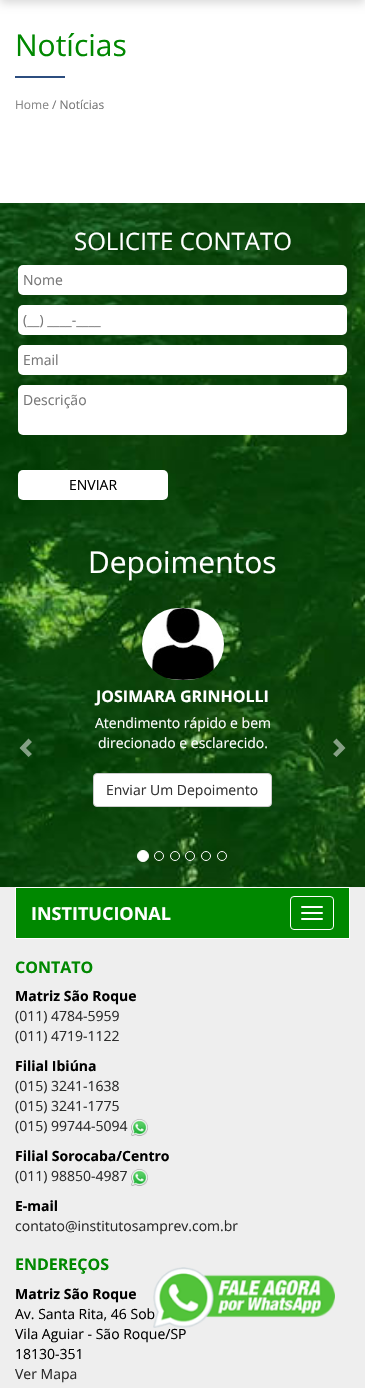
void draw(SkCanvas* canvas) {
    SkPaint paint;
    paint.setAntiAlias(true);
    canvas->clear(0xFFFFFFFF);
    paint.setColor(0x26000000);
    paint.setMaskFilter(SkMaskFilter::MakeBlur(kNormal_SkBlurStyle, 5));
    canvas->drawRect(SkRect::MakeXYWH(0, -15, 365, 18), paint);
    paint.setMaskFilter(nullptr);
    SkFont font1(fontMgr->matchFamilyStyle("Open Sans", SkFontStyle::Normal()), 30);
    font1.setSubpixel(true);
    paint.setColor(0xFF008800);
    canvas->drawString("Notícias", 15, 56, font1, paint);
    paint.setColor(0xFF2C4D7F);
    canvas->drawRect(SkRect::MakeXYWH(15, 76, 50, 2), paint);
    SkFont font2(fontMgr->matchFamilyStyle("Open Sans", SkFontStyle::Normal()), 12);
    font2.setSubpixel(true);
    paint.setColor(0xFF888888);
    canvas->drawString("Home", 15, 109, font2, paint);
    paint.setColor(0xFF777777);
    canvas->drawString("/ Notícias", 52, 109, font2, paint);
    canvas->drawImageRect(SkImages::DeferredFromEncodedData(SkData::MakeFromFileName("img1.png")), SkRect::MakeXYWH(0, 203, 365, 684), SkSamplingOptions());
    SkFont font3(fontMgr->matchFamilyStyle("Open Sans", SkFontStyle::Normal()), 24);
    font3.setSubpixel(true);
    paint.setColor(0xFFFFFFFF);
    canvas->drawString("SOLICITE CONTATO", 74, 250, font3, paint);
    canvas->drawRoundRect(SkRect::MakeXYWH(18, 265, 329, 30), 5, 5, paint);
    SkFont font4(fontMgr->matchFamilyStyle("Open Sans", SkFontStyle::Normal()), 14);
    font4.setSubpixel(true);
    paint.setColor(0xFF777777);
    canvas->drawString("Nome", 23, 285, font4, paint);
    paint.setColor(0xFFFFFFFF);
    canvas->drawRoundRect(SkRect::MakeXYWH(18, 305, 329, 30), 5, 5, paint);
    paint.setColor(0xFF777777);
    canvas->drawString("(__) ____-____", 23, 325, font4, paint);
    paint.setColor(0xFFFFFFFF);
    canvas->drawRoundRect(SkRect::MakeXYWH(18, 345, 329, 30), 5, 5, paint);
    paint.setColor(0xFF777777);
    canvas->drawString("Email", 23, 365, font4, paint);
    paint.setColor(0xFFFFFFFF);
    canvas->drawRoundRect(SkRect::MakeXYWH(18, 385, 329, 50), 5, 5, paint);
    paint.setColor(0xFF777777);
    canvas->drawString("Descrição", 23, 405, font4, paint);
    paint.setColor(0xFFFFFFFF);
    canvas->drawRoundRect(SkRect::MakeXYWH(18, 470, 150, 30), 5, 5, paint);
    paint.setColor(0xFF000000);
    canvas->drawString("ENVIAR", 69, 490, font4, paint);
    paint.setColor(0xFFFFFFFF);
    canvas->drawString("Depoimentos", 88, 573, font1, paint);
    paint.setColor(0x80FFFFFF);
    canvas->drawPath(SkPathBuilder().moveTo(32, 742).lineTo(26, 748).lineTo(32, 754).lineTo(28.5f, 757).lineTo(19.5f, 748).lineTo(28.5f, 738.5f).close().detach(), paint);
    canvas->drawImageRect(SkImages::DeferredFromEncodedData(SkData::MakeFromFileName("img2.png")), SkRect::MakeXYWH(142, 608, 82, 72), SkSamplingOptions());
    SkFont font5(fontMgr->matchFamilyStyle("Open Sans", SkFontStyle::Bold()), 16);
    font5.setSubpixel(true);
    paint.setColor(0xFFFFFFFF);
    canvas->drawString("JOSIMARA GRINHOLLI", 96, 702, font5, paint);
    canvas->drawString("Atendimento rápido e bem", 95, 728, font4, paint);
    canvas->drawString("direcionado e esclarecido.", 98, 748, font4, paint);
    paint.setColor(0x80FFFFFF);
    canvas->drawPath(SkPathBuilder().moveTo(345.5f, 748).lineTo(336.5f, 757).lineTo(333, 754).lineTo(339, 748).lineTo(333, 742).lineTo(336.5f, 738.5f).close().detach(), paint);
    paint.setColor(0xFFFFFFFF);
    canvas->drawRoundRect(SkRect::MakeXYWH(93.5f, 773.5f, 178, 33), 3.5f, 3.5f, paint);
    paint.setStyle(SkPaint::kStroke_Style);
    paint.setStrokeWidth(1);
    paint.setColor(0xFFCCCCCC);
    canvas->drawRoundRect(SkRect::MakeXYWH(93.5f, 773.5f, 178, 33), 3.5f, 3.5f, paint);
    paint.setStyle(SkPaint::kFill_Style);
    paint.setColor(0xFF333333);
    canvas->drawString("Enviar Um Depoimento", 106, 795, font4, paint);
    paint.setColor(0xFFFFFFFF);
    canvas->drawCircle(143, 856, 5.5f, paint);
    paint.setStyle(SkPaint::kStroke_Style);
    canvas->drawCircle(143, 856, 5.5f, paint);
    canvas->drawCircle(159, 856, 4.5f, paint);
    canvas->drawCircle(175, 856, 4.5f, paint);
    canvas->drawCircle(190, 856, 4.5f, paint);
    canvas->drawCircle(206, 856, 4.5f, paint);
    canvas->drawCircle(222, 856, 4.5f, paint);
    paint.setStyle(SkPaint::kFill_Style);
    paint.setColor(0xFFEEEEEE);
    canvas->drawRect(SkRect::MakeXYWH(0, 887, 365, 501), paint);
    paint.setColor(0xFF008800);
    canvas->drawRect(SkRect::MakeXYWH(15.5f, 887.5f, 334, 51), paint);
    paint.setStyle(SkPaint::kStroke_Style);
    paint.setColor(0xFFFFFFFF);
    canvas->drawRect(SkRect::MakeXYWH(15.5f, 887.5f, 334, 51), paint);
    SkFont font6(fontMgr->matchFamilyStyle("Open Sans", SkFontStyle::Bold()), 18);
    font6.setSubpixel(true);
    paint.setStyle(SkPaint::kFill_Style);
    canvas->drawString("INSTITUCIONAL", 31, 920, font6, paint);
    paint.setStyle(SkPaint::kStroke_Style);
    canvas->drawRoundRect(SkRect::MakeXYWH(290.5f, 896.5f, 43, 33), 3.5f, 3.5f, paint);
    paint.setStyle(SkPaint::kFill_Style);
    canvas->drawRoundRect(SkRect::MakeXYWH(301, 906, 22, 2), 1, 1, paint);
    canvas->drawRoundRect(SkRect::MakeXYWH(301, 912, 22, 2), 1, 1, paint);
    canvas->drawRoundRect(SkRect::MakeXYWH(301, 918, 22, 2), 1, 1, paint);
    paint.setColor(0xFF008800);
    canvas->drawString("CONTATO", 15, 973, font5, paint);
    SkFont font7(fontMgr->matchFamilyStyle("Open Sans", SkFontStyle::Bold()), 14);
    font7.setSubpixel(true);
    paint.setColor(0xFF000000);
    canvas->drawString("Matriz São Roque", 15, 1001, font7, paint);
    paint.setColor(0xFF2C2C2C);
    canvas->drawString("(011) 4784-5959", 15, 1021, font4, paint);
    canvas->drawString("(011) 4719-1122", 15, 1041, font4, paint);
    paint.setColor(0xFF000000);
    canvas->drawString("Filial Ibiúna", 15, 1071, font7, paint);
    paint.setColor(0xFF2C2C2C);
    canvas->drawString("(015) 3241-1638", 15, 1091, font4, paint);
    canvas->drawString("(015) 3241-1775", 15, 1111, font4, paint);
    canvas->drawString("(015) 99744-5094", 15, 1131, font4, paint);
    canvas->drawImageRect(SkImages::DeferredFromEncodedData(SkData::MakeFromFileName("img3.png")), SkRect::MakeXYWH(131, 1119, 17, 17), SkSamplingOptions());
    paint.setColor(0xFF000000);
    canvas->drawString("Filial Sorocaba/Centro", 15, 1161, font7, paint);
    paint.setColor(0xFF2C2C2C);
    canvas->drawString("(011) 98850-4987", 15, 1181, font4, paint);
    canvas->drawImageRect(SkImages::DeferredFromEncodedData(SkData::MakeFromFileName("img3.png")), SkRect::MakeXYWH(131, 1169, 17, 17), SkSamplingOptions());
    paint.setColor(0xFF000000);
    canvas->drawString("E-mail", 15, 1211, font7, paint);
    paint.setColor(0xFF2C2C2C);
    canvas->drawString("contato@institutosamprev.com.br", 15, 1231, font4, paint);
    paint.setColor(0xFF008800);
    canvas->drawString("ENDEREÇOS", 15, 1270, font5, paint);
    paint.setColor(0xFF000000);
    canvas->drawString("Matriz São Roque", 15, 1299, font7, paint);
    canvas->drawString("Av. Santa Rita, 46 Sob", 15, 1319, font4, paint);
    canvas->drawString("Vila Aguiar - São Roque/SP", 15, 1339, font4, paint);
    canvas->drawString("18130-351", 15, 1359, font4, paint);
    paint.setColor(0xFF2C2C2C);
    canvas->drawString("Ver Mapa", 15, 1379, font4, paint);
    canvas->drawImageRect(SkImages::DeferredFromEncodedData(SkData::MakeFromFileName("img4.png")), SkRect::MakeXYWH(153, 1267, 182, 61), SkSamplingOptions());
}
